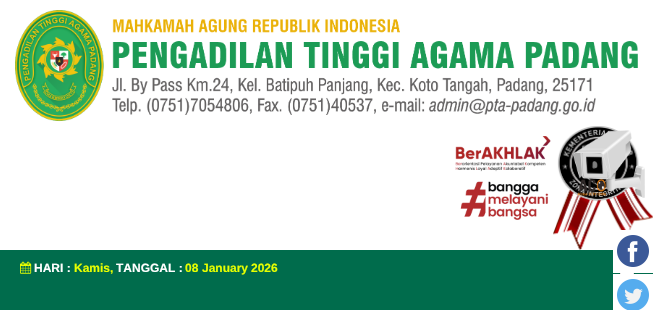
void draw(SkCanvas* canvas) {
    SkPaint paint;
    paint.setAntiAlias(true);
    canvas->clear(0xFFFFFFFF);
    canvas->drawImageRect(SkImages::DeferredFromEncodedData(SkData::MakeFromFileName("img4.png")), SkRect::MakeXYWH(553, 126, 100, 124), SkSamplingOptions());
    canvas->drawImageRect(SkImages::DeferredFromEncodedData(SkData::MakeFromFileName("img1.png")), SkRect::MakeXYWH(573, 130, 72, 68), SkSamplingOptions());
    canvas->drawImageRect(SkImages::DeferredFromEncodedData(SkData::MakeFromFileName("img2.png")), SkRect::MakeXYWH(15, 10, 623, 112), SkSamplingOptions());
    canvas->drawImageRect(SkImages::DeferredFromEncodedData(SkData::MakeFromFileName("img3.png")), SkRect::MakeXYWH(455, 136, 96, 84), SkSamplingOptions());
    paint.setColor(0xFF006C4C);
    canvas->drawRect(SkRect::MakeXYWH(0, 250, 653, 60), paint);
    canvas->drawImageRect(SkImages::DeferredFromEncodedData(SkData::MakeFromFileName("img5.png")), SkRect::MakeXYWH(20, 261, 12, 13), SkSamplingOptions());
    SkFont font1(fontMgr->matchFamilyStyle("Liberation Sans", SkFontStyle::Bold()), 12);
    font1.setSubpixel(true);
    paint.setColor(0xFFFFFFFF);
    canvas->drawString("HARI :", 34, 272, font1, paint);
    paint.setColor(0xFFE7FF00);
    canvas->drawString("Kamis,", 74, 272, font1, paint);
    paint.setColor(0xFFFFFFFF);
    canvas->drawString("TANGGAL :", 116, 272, font1, paint);
    paint.setColor(0xFFE7FF00);
    canvas->drawString("08", 185, 272, font1, paint);
    canvas->drawString("January", 202, 272, font1, paint);
    canvas->drawString("2026", 251, 272, font1, paint);
    canvas->drawImageRect(SkImages::DeferredFromEncodedData(SkData::MakeFromFileName("img6.png")), SkRect::MakeXYWH(619, 273, 16, 1), SkSamplingOptions());
    paint.setColor(0xFFFFFFFF);
    canvas->drawRect(SkRect::MakeXYWH(613, 230, 40, 43), paint);
    canvas->drawImageRect(SkImages::DeferredFromEncodedData(SkData::MakeFromFileName("img7.png")), SkRect::MakeXYWH(617, 235, 32, 32), SkSamplingOptions());
    canvas->drawRect(SkRect::MakeXYWH(613, 274, 40, 36), paint);
    canvas->drawImageRect(SkImages::DeferredFromEncodedData(SkData::MakeFromFileName("img8.png")), SkRect::MakeXYWH(617, 279, 32, 31), SkSamplingOptions());
}
